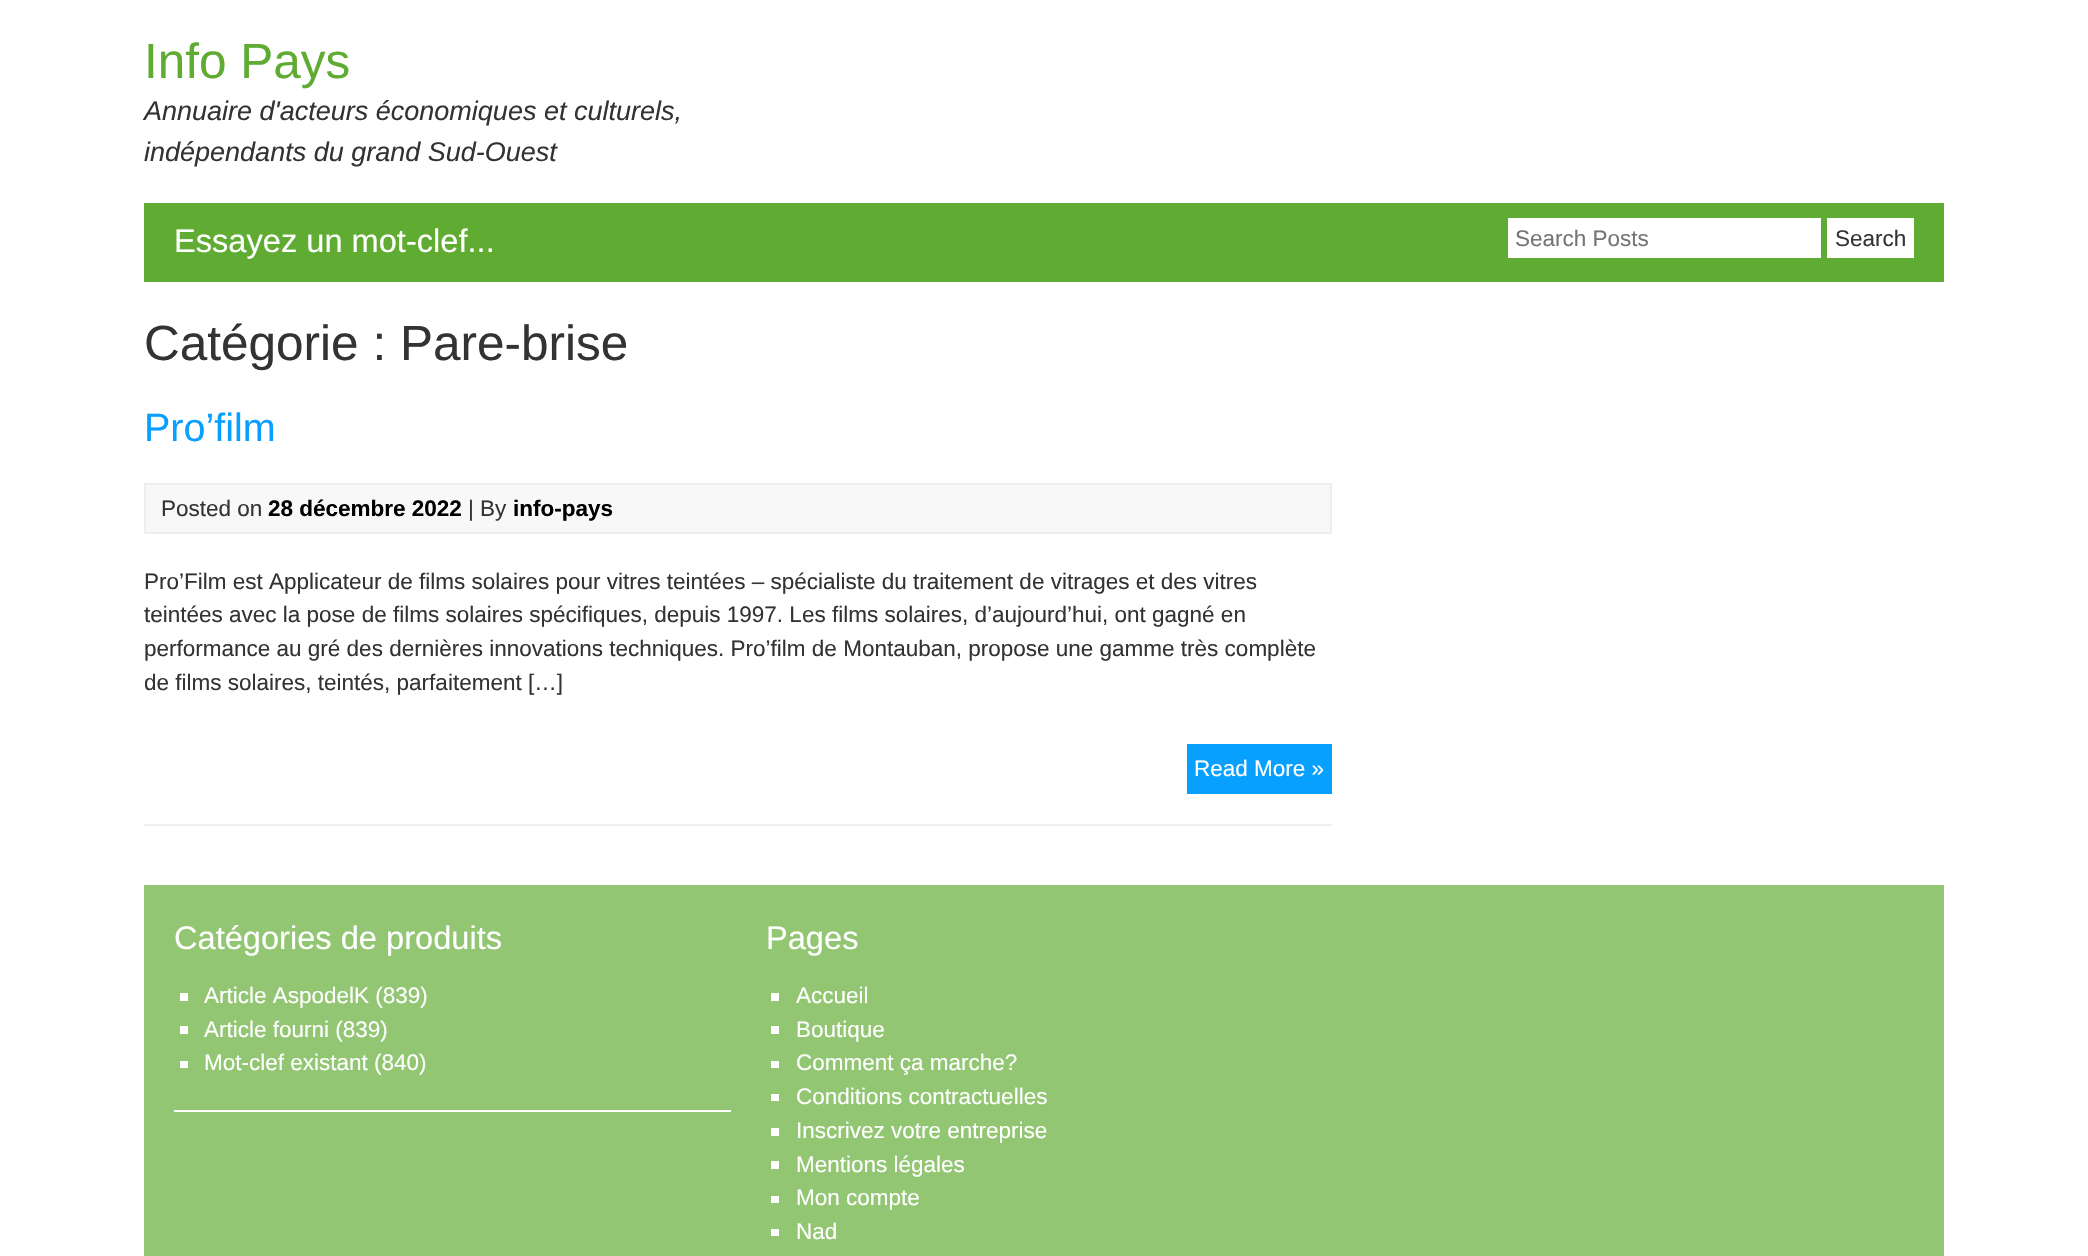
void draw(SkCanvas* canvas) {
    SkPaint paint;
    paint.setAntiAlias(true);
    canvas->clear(0xFFFFFFFF);
    SkFont font1(fontMgr->matchFamilyStyle("Liberation Sans", SkFontStyle::Normal()), 49.5f);
    font1.setSubpixel(true);
    paint.setColor(0xFF60AC33);
    canvas->drawString("Info Pays", 144, 78, font1, paint);
    SkFont font2(fontMgr->matchFamilyStyle("Liberation Sans", SkFontStyle::Italic()), 27);
    font2.setSubpixel(true);
    paint.setColor(0xFF333333);
    canvas->drawString("Annuaire d'acteurs économiques et culturels,", 144, 120, font2, paint);
    canvas->drawString("indépendants du grand Sud-Ouest", 144, 161, font2, paint);
    paint.setColor(0xFF60AC33);
    canvas->drawRect(SkRect::MakeXYWH(144, 203, 1800, 79), paint);
    SkFont font3(fontMgr->matchFamilyStyle("Liberation Sans", SkFontStyle::Normal()), 32.6f);
    font3.setSubpixel(true);
    paint.setColor(0xFFFFFFFF);
    canvas->drawString("Essayez un mot-clef...", 174, 252, font3, paint);
    canvas->drawRect(SkRect::MakeXYWH(1508, 218, 313, 40), paint);
    SkFont font4(fontMgr->matchFamilyStyle("Liberation Sans", SkFontStyle::Normal()), 22.5f);
    font4.setSubpixel(true);
    paint.setColor(0xFF757575);
    canvas->drawString("Search Posts", 1515, 246, font4, paint);
    paint.setColor(0xFFFFFFFF);
    canvas->drawRect(SkRect::MakeXYWH(1827, 218, 87, 40), paint);
    paint.setColor(0xFF333333);
    canvas->drawString("Search", 1835, 246, font4, paint);
    canvas->drawString("Catégorie : Pare-brise", 144, 360, font1, paint);
    paint.setColor(0xFFEEEEEE);
    canvas->drawRect(SkRect::MakeXYWH(144, 824, 1188, 2), paint);
    SkFont font5(fontMgr->matchFamilyStyle("Liberation Sans", SkFontStyle::Normal()), 39.5f);
    font5.setSubpixel(true);
    paint.setColor(0xFF08A0FF);
    canvas->drawString("Pro’film", 144, 441, font5, paint);
    paint.setColor(0xFFF8F8F8);
    canvas->drawRect(SkRect::MakeXYWH(145, 484, 1186, 49), paint);
    paint.setStyle(SkPaint::kStroke_Style);
    paint.setStrokeWidth(2);
    paint.setColor(0xFFEEEEEE);
    canvas->drawRect(SkRect::MakeXYWH(145, 484, 1186, 49), paint);
    paint.setStyle(SkPaint::kFill_Style);
    paint.setColor(0xFF333333);
    canvas->drawString("Posted on", 161, 516, font4, paint);
    SkFont font6(fontMgr->matchFamilyStyle("Liberation Sans", SkFontStyle::Bold()), 22.5f);
    font6.setSubpixel(true);
    paint.setColor(0xFF000000);
    canvas->drawString("28 décembre 2022", 268, 516, font6, paint);
    paint.setColor(0xFF333333);
    canvas->drawString("| By", 468, 516, font4, paint);
    paint.setColor(0xFF000000);
    canvas->drawString("info-pays", 513, 516, font6, paint);
    paint.setColor(0xFF333333);
    canvas->drawString("Pro’Film est Applicateur de films solaires pour vitres teintées – spécialiste du traitement de vitrages et des vitres", 144, 589, font4, paint);
    canvas->drawString("teintées avec la pose de films solaires spécifiques, depuis 1997. Les films solaires, d’aujourd’hui, ont gagné en", 144, 622, font4, paint);
    canvas->drawString("performance au gré des dernières innovations techniques. Pro’film de Montauban, propose une gamme très complète", 144, 656, font4, paint);
    canvas->drawString("de films solaires, teintés, parfaitement […]", 144, 690, font4, paint);
    paint.setColor(0xFF08A0FF);
    canvas->drawRect(SkRect::MakeXYWH(1187, 744, 145, 50), paint);
    paint.setColor(0xFFFFFFFF);
    canvas->drawString("Read More »", 1194, 776, font4, paint);
    paint.setColor(0xFF92C673);
    canvas->drawRect(SkRect::MakeXYWH(144, 885, 1800, 371), paint);
    paint.setColor(0xFFFFFFFF);
    canvas->drawRect(SkRect::MakeXYWH(174, 1110, 557, 2), paint);
    canvas->drawString("Catégories de produits", 174, 949, font3, paint);
    canvas->drawRect(SkRect::MakeXYWH(180, 993, 8, 8), paint);
    canvas->drawString("Article AspodelK (839)", 204, 1003, font4, paint);
    canvas->drawRect(SkRect::MakeXYWH(180, 1026, 8, 8), paint);
    canvas->drawString("Article fourni (839)", 204, 1037, font4, paint);
    canvas->drawRect(SkRect::MakeXYWH(180, 1061, 8, 7), paint);
    canvas->drawString("Mot-clef existant (840)", 204, 1070, font4, paint);
    canvas->drawString("Pages", 766, 949, font3, paint);
    canvas->drawRect(SkRect::MakeXYWH(771, 993, 8, 8), paint);
    canvas->drawString("Accueil", 796, 1003, font4, paint);
    canvas->drawRect(SkRect::MakeXYWH(771, 1026, 8, 8), paint);
    canvas->drawString("Boutique", 796, 1037, font4, paint);
    canvas->drawRect(SkRect::MakeXYWH(771, 1061, 8, 7), paint);
    canvas->drawString("Comment ça marche?", 796, 1070, font4, paint);
    canvas->drawRect(SkRect::MakeXYWH(771, 1094, 8, 7), paint);
    canvas->drawString("Conditions contractuelles", 796, 1104, font4, paint);
    canvas->drawRect(SkRect::MakeXYWH(771, 1128, 8, 8), paint);
    canvas->drawString("Inscrivez votre entreprise", 796, 1138, font4, paint);
    canvas->drawRect(SkRect::MakeXYWH(771, 1161, 8, 8), paint);
    canvas->drawString("Mentions légales", 796, 1172, font4, paint);
    canvas->drawRect(SkRect::MakeXYWH(771, 1196, 8, 7), paint);
    canvas->drawString("Mon compte", 796, 1205, font4, paint);
    canvas->drawRect(SkRect::MakeXYWH(771, 1229, 8, 7), paint);
    canvas->drawString("Nad", 796, 1239, font4, paint);
}
